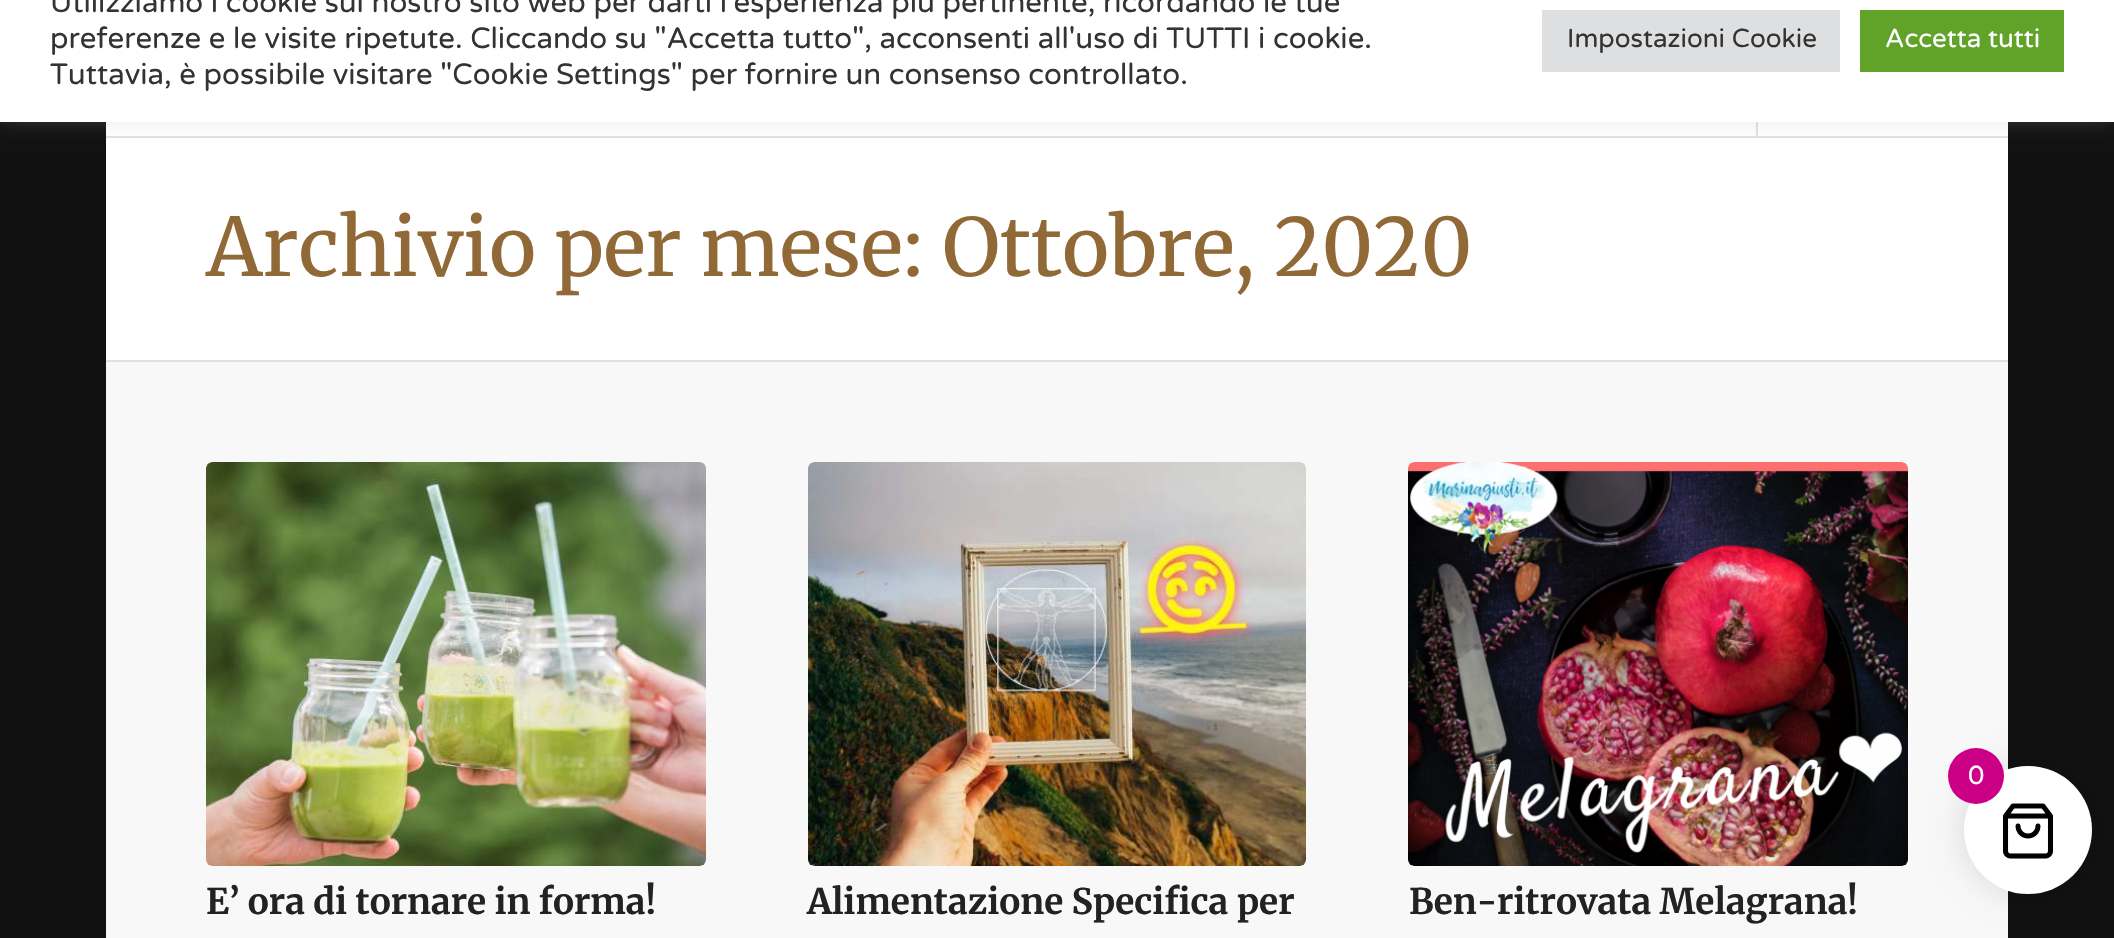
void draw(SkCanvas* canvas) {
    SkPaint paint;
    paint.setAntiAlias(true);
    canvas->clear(0xFF111111);
    paint.setColor(0xFFE1E1E1);
    canvas->drawRect(SkRect::MakeXYWH(106, 136, 1902, 2), paint);
    paint.setColor(0xFFFFFFFF);
    canvas->drawRect(SkRect::MakeXYWH(106, 122, 1902, 12), paint);
    paint.setColor(0xFFFEFEFE);
    canvas->drawRect(SkRect::MakeXYWH(106, 134, 1902, 2), paint);
    paint.setColor(0xFFE1E1E1);
    canvas->drawRect(SkRect::MakeXYWH(1756, 122, 2, 14), paint);
    paint.setColor(0xFFFFFFFF);
    canvas->drawRect(SkRect::MakeXYWH(106, 138, 1902, 222), paint);
    paint.setColor(0x4DACABAB);
    paint.setMaskFilter(SkMaskFilter::MakeBlur(kNormal_SkBlurStyle, 10));
    canvas->drawRect(SkRect::MakeXYWH(0, -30, 2114, 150), paint);
    paint.setMaskFilter(nullptr);
    paint.setColor(0xFFFFFFFF);
    canvas->drawRect(SkRect::MakeXYWH(0, 0, 2114, 122), paint);
    SkFont font1(fontMgr->matchFamilyStyle("Varela Round", SkFontStyle::Normal()), 29.35f);
    font1.setSubpixel(true);
    paint.setColor(0xFF333333);
    canvas->drawString("Utilizziamo i cookie sul nostro sito web per darti l'esperienza più pertinente, ricordando le tue", 50, 12, font1, paint);
    canvas->drawString("preferenze e le visite ripetute. Cliccando su \"Accetta tutto\", acconsenti all'uso di TUTTI i cookie.", 50, 48, font1, paint);
    canvas->drawString("Tuttavia, è possibile visitare \"Cookie Settings\" per fornire un consenso controllato.", 50, 84, font1, paint);
    paint.setColor(0xFFDEDFE0);
    canvas->drawRect(SkRect::MakeXYWH(1542, 10, 298, 62), paint);
    SkFont font2(fontMgr->matchFamilyStyle("Varela Round", SkFontStyle::Normal()), 26);
    font2.setSubpixel(true);
    paint.setColor(0xFF333333);
    canvas->drawString("Impostazioni Cookie", 1567, 47, font2, paint);
    paint.setColor(0xFF61A229);
    canvas->drawRect(SkRect::MakeXYWH(1860, 10, 204, 62), paint);
    paint.setColor(0xFFFFFFFF);
    canvas->drawString("Accetta tutti", 1885, 47, font2, paint);
    SkFont font3(fontMgr->matchFamilyStyle("Merriweather", SkFontStyle::Normal()), 80);
    font3.setSubpixel(true);
    paint.setColor(0xFF916937);
    canvas->drawString("Archivio per mese: Ottobre, 2020", 206, 276, font3, paint);
    paint.setColor(0xFFF8F8F8);
    canvas->drawRect(SkRect::MakeXYWH(106, 362, 1902, 576), paint);
    paint.setColor(0xFFE1E1E1);
    canvas->drawRect(SkRect::MakeXYWH(106, 360, 1902, 2), paint);
    paint.setColor(0xFFFFFFFF);
    canvas->drawRoundRect(SkRect::MakeXYWH(206, 462, 500, 404), 6, 6, paint);
    canvas->drawImageRect(SkImages::DeferredFromEncodedData(SkData::MakeFromFileName("img1.png")), SkRect::MakeXYWH(206, 462, 500, 404), SkSamplingOptions());
    SkFont font4(fontMgr->matchFamilyStyle("Merriweather", SkFontStyle::Bold()), 35.25f);
    font4.setSubpixel(true);
    paint.setColor(0xFF222222);
    canvas->drawString("E’ ora di tornare in forma!", 206, 914, font4, paint);
    paint.setColor(0xFFFFFFFF);
    canvas->drawRoundRect(SkRect::MakeXYWH(808, 462, 498, 404), 6, 6, paint);
    canvas->drawImageRect(SkImages::DeferredFromEncodedData(SkData::MakeFromFileName("img2.png")), SkRect::MakeXYWH(808, 462, 498, 404), SkSamplingOptions());
    paint.setColor(0xFF222222);
    canvas->drawString("Alimentazione Specifica per", 807, 914, font4, paint);
    paint.setColor(0xFFFFFFFF);
    canvas->drawRoundRect(SkRect::MakeXYWH(1408, 462, 500, 404), 6, 6, paint);
    canvas->drawImageRect(SkImages::DeferredFromEncodedData(SkData::MakeFromFileName("img3.png")), SkRect::MakeXYWH(1408, 462, 500, 404), SkSamplingOptions());
    paint.setColor(0xFF222222);
    canvas->drawString("Ben-ritrovata Melagrana!", 1409, 914, font4, paint);
    paint.setColor(0x1A000000);
    paint.setMaskFilter(SkMaskFilter::MakeBlur(kNormal_SkBlurStyle, 15));
    canvas->drawRoundRect(SkRect::MakeXYWH(1960, 762, 136, 136), 68, 68, paint);
    paint.setMaskFilter(nullptr);
    paint.setColor(0xFFFFFFFF);
    canvas->drawCircle(2028, 830, 64, paint);
    canvas->drawImageRect(SkImages::DeferredFromEncodedData(SkData::MakeFromFileName("img4.png")), SkRect::MakeXYWH(2003, 803, 50, 56), SkSamplingOptions());
    paint.setColor(0xFFCC0086);
    canvas->drawCircle(1976, 776, 28, paint);
    paint.setColor(0xFFFFFFFF);
    canvas->drawString("0", 1968, 784, font2, paint);
}
